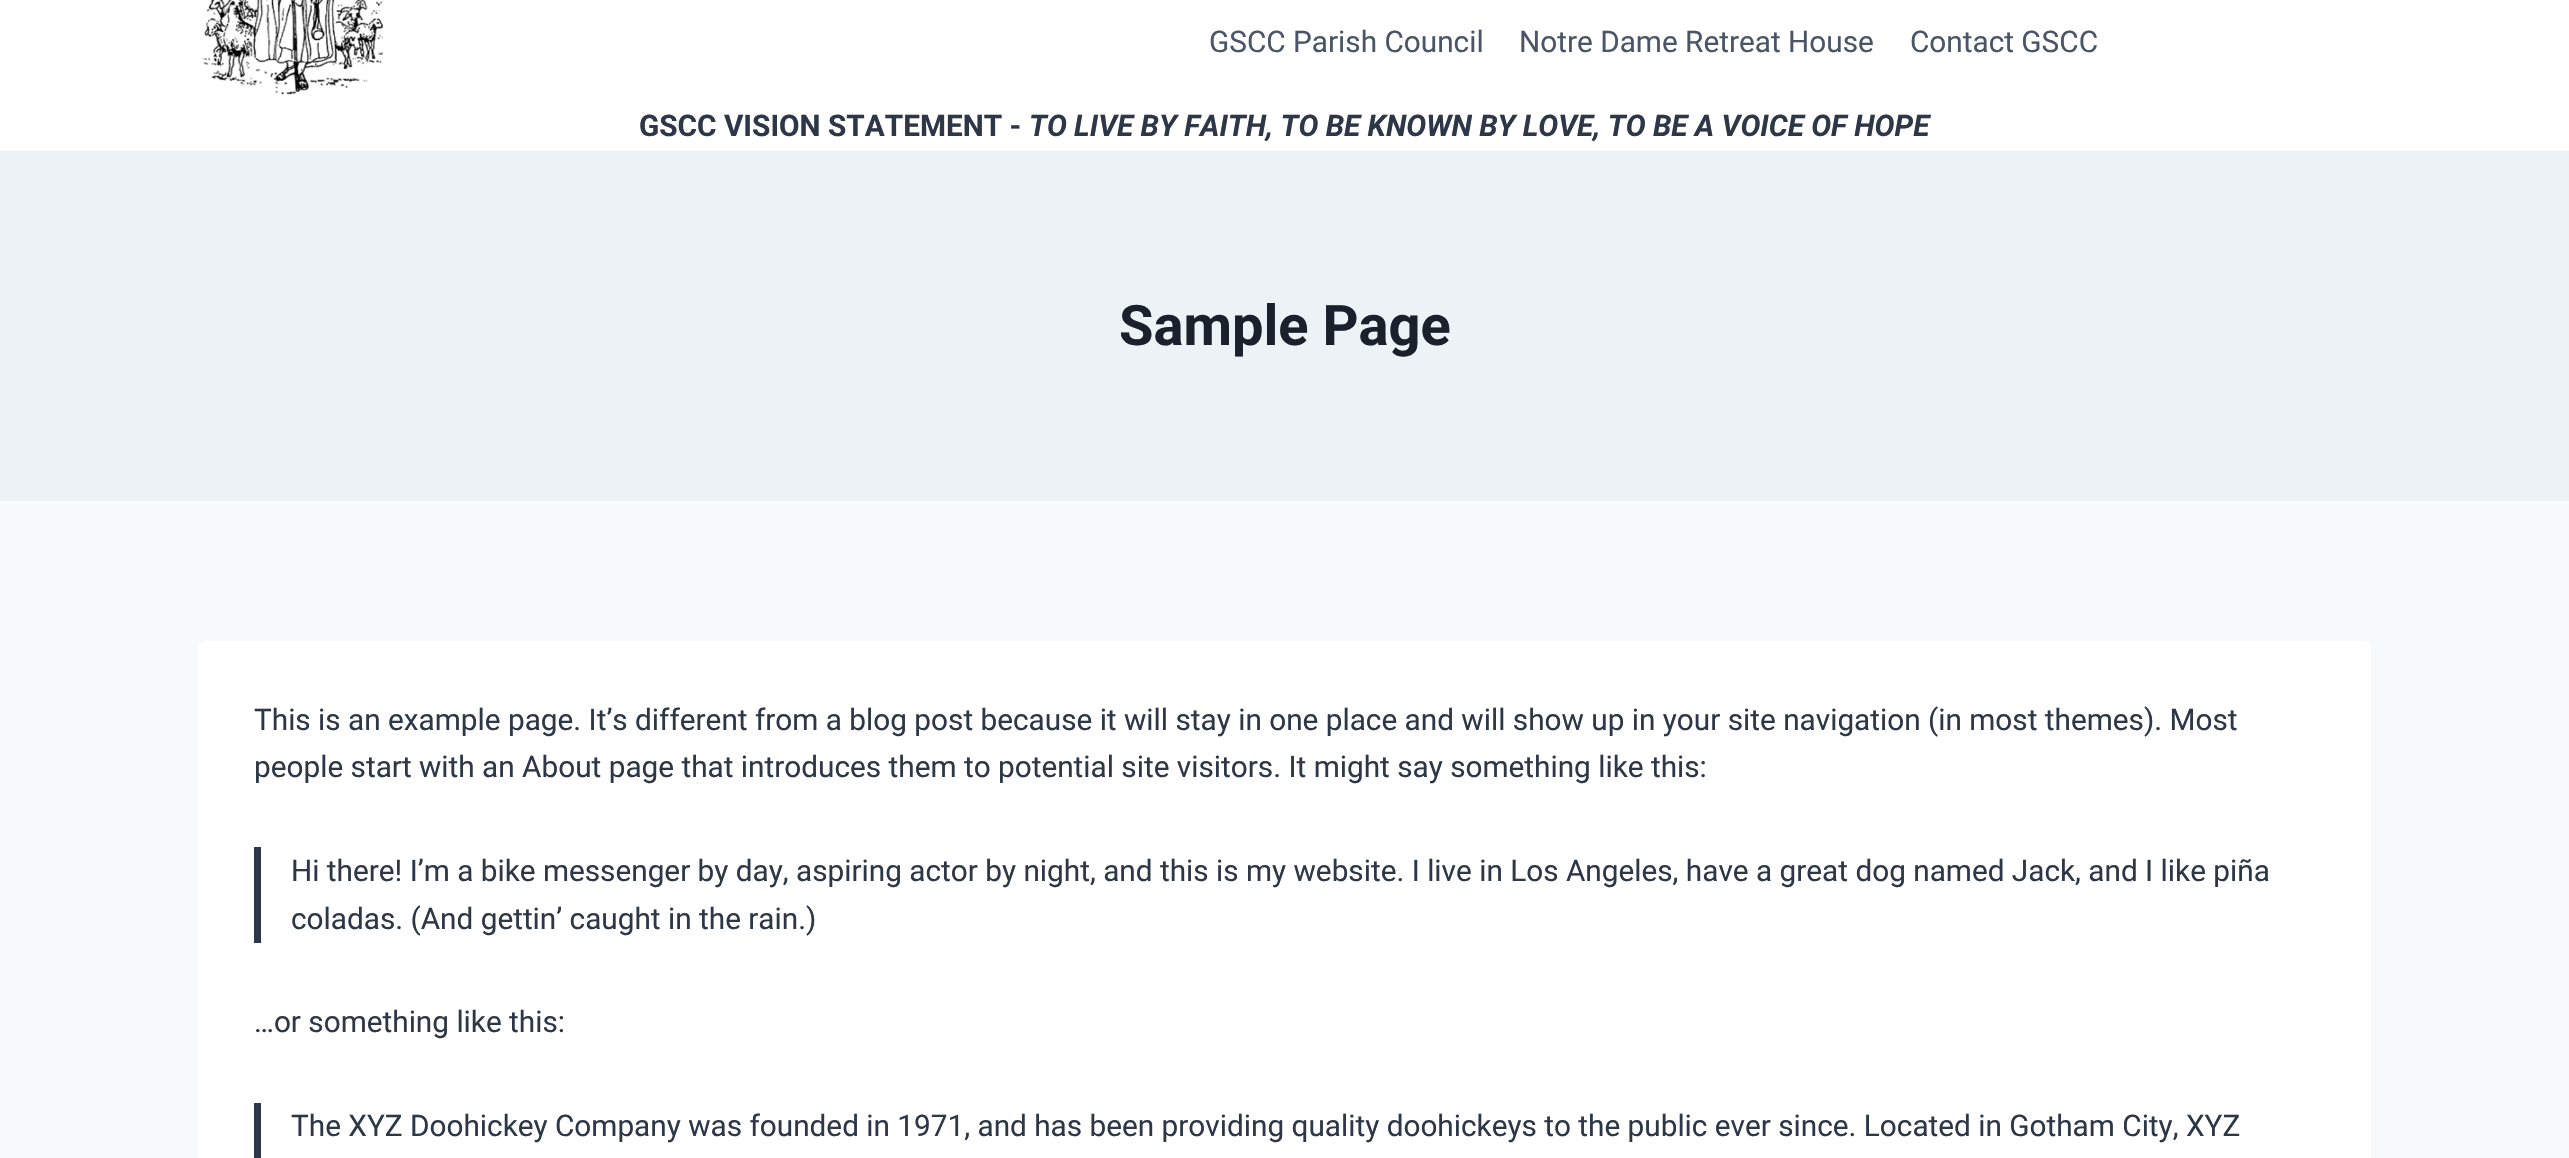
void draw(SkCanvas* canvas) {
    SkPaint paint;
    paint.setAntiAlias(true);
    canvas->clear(0xFFF7FAFC);
    paint.setColor(0xFFFFFFFF);
    canvas->drawRect(SkRect::MakeXYWH(0, 0, 2569, 151), paint);
    canvas->drawImageRect(SkImages::DeferredFromEncodedData(SkData::MakeFromFileName("img1.png")), SkRect::MakeXYWH(202, 0, 181, 95), SkSamplingOptions());
    SkFont font1(fontMgr->matchFamilyStyle("Roboto", SkFontStyle::Normal()), 29.75f);
    font1.setSubpixel(true);
    paint.setColor(0xFF4A5568);
    canvas->drawString("GSCC Parish Council", 1209, 52, font1, paint);
    canvas->drawString("Notre Dame Retreat House", 1519, 52, font1, paint);
    canvas->drawString("Contact GSCC", 1910, 52, font1, paint);
    SkFont font2(fontMgr->matchFamilyStyle("Roboto", SkFontStyle::Bold()), 29.75f);
    font2.setSubpixel(true);
    paint.setColor(0xFF2D3748);
    canvas->drawString("GSCC VISION STATEMENT -", 639, 136, font2, paint);
    SkFont font3(fontMgr->matchFamilyStyle("Roboto", SkFontStyle::BoldItalic()), 29.75f);
    font3.setSubpixel(true);
    canvas->drawString("TO LIVE BY FAITH, TO BE KNOWN BY LOVE, TO BE A VOICE OF HOPE", 1029, 136, font3, paint);
    paint.setColor(0xFFEDF2F7);
    canvas->drawRect(SkRect::MakeXYWH(0, 151, 2569, 350), paint);
    SkFont font4(fontMgr->matchFamilyStyle("Roboto", SkFontStyle::Bold()), 56);
    font4.setSubpixel(true);
    paint.setColor(0xFF1A202C);
    canvas->drawString("Sample Page", 1119, 345, font4, paint);
    paint.setColor(0xFFFFFFFF);
    canvas->drawRoundRect(SkRect::MakeXYWH(198, 641, 2173, 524), 7, 7, paint);
    paint.setColor(0xFF2D3748);
    canvas->drawString("This is an example page. It’s different from a blog post because it will stay in one place and will show up in your site navigation (in most themes). Most", 254, 730, font1, paint);
    canvas->drawString("people start with an About page that introduces them to potential site visitors. It might say something like this:", 254, 777, font1, paint);
    canvas->drawRect(SkRect::MakeXYWH(254, 847, 7, 96), paint);
    canvas->drawString("Hi there! I’m a bike messenger by day, aspiring actor by night, and this is my website. I live in Los Angeles, have a great dog named Jack, and I like piña", 291, 881, font1, paint);
    canvas->drawString("coladas. (And gettin’ caught in the rain.)", 291, 929, font1, paint);
    canvas->drawString("…or something like this:", 254, 1032, font1, paint);
    canvas->drawRect(SkRect::MakeXYWH(254, 1103, 7, 55), paint);
    canvas->drawString("The XYZ Doohickey Company was founded in 1971, and has been providing quality doohickeys to the public ever since. Located in Gotham City, XYZ", 291, 1136, font1, paint);
}
